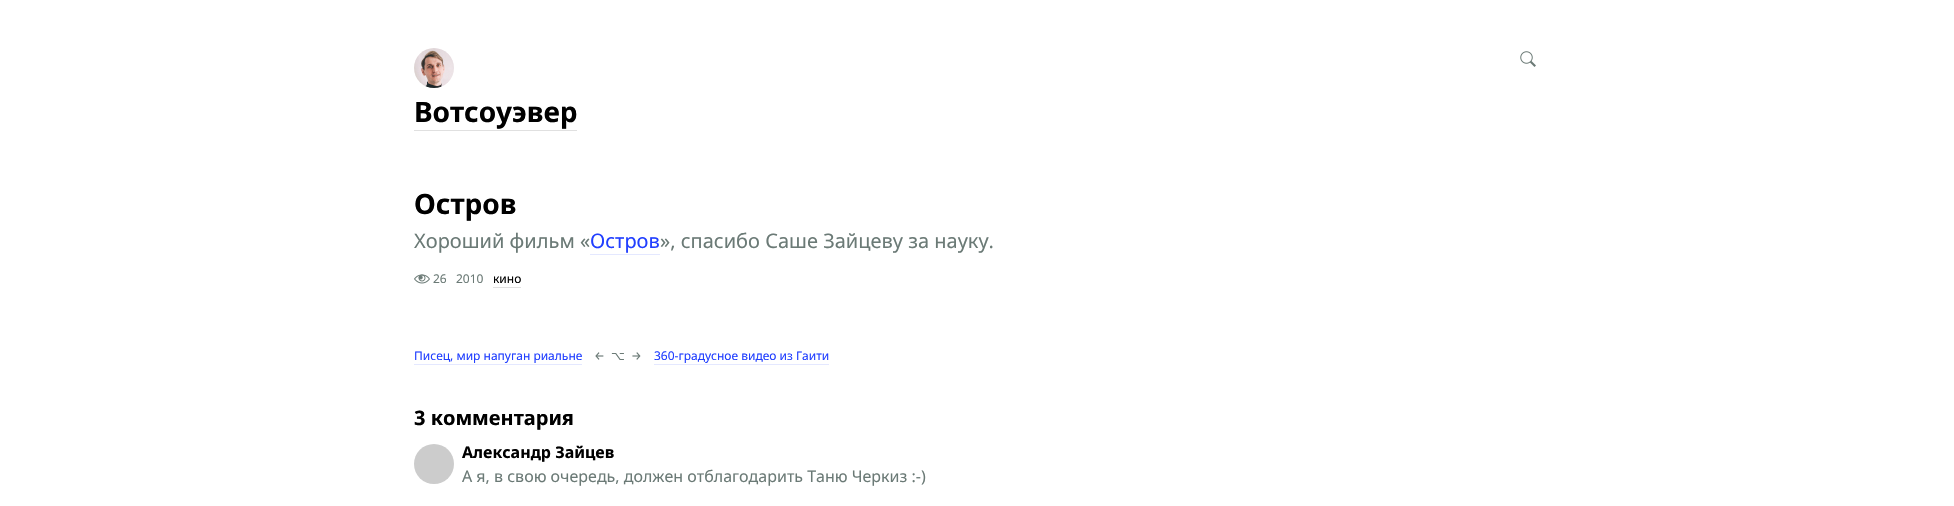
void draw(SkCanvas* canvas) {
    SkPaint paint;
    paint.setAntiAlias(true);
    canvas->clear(0xFFFFFFFF);
    canvas->drawImageRect(SkImages::DeferredFromEncodedData(SkData::MakeFromFileName("img1.png")), SkRect::MakeXYWH(1520, 51, 16, 16), SkSamplingOptions());
    canvas->drawImageRect(SkImages::DeferredFromEncodedData(SkData::MakeFromFileName("img2.png")), SkRect::MakeXYWH(414, 48, 40, 40), SkSamplingOptions());
    SkFont font1(fontMgr->matchFamilyStyle("Noto Sans", SkFontStyle::Bold()), 28);
    font1.setSubpixel(true);
    paint.setColor(0xFF000000);
    canvas->drawString("Вотсоуэвер", 414, 122, font1, paint);
    paint.setColor(0xFFE0E0E0);
    canvas->drawRect(SkRect::MakeXYWH(414, 130, 163, 1), paint);
    paint.setColor(0xFF000000);
    canvas->drawString("Остров", 414, 214, font1, paint);
    SkFont font2(fontMgr->matchFamilyStyle("Noto Sans", SkFontStyle::Normal()), 20);
    font2.setSubpixel(true);
    paint.setColor(0xFF6B7A76);
    canvas->drawString("Хороший фильм «", 414, 248, font2, paint);
    paint.setColor(0xFF213FFF);
    canvas->drawString("Остров", 590, 248, font2, paint);
    paint.setColor(0xFFE4E8FF);
    canvas->drawRect(SkRect::MakeXYWH(590, 254, 70, 1), paint);
    paint.setColor(0xFF6B7A76);
    canvas->drawString("», спасибо Саше Зайцеву за науку.", 660, 248, font2, paint);
    canvas->drawImageRect(SkImages::DeferredFromEncodedData(SkData::MakeFromFileName("img3.png")), SkRect::MakeXYWH(414, 274, 16, 10), SkSamplingOptions());
    SkFont font3(fontMgr->matchFamilyStyle("Noto Sans", SkFontStyle::Normal()), 12);
    font3.setSubpixel(true);
    canvas->drawString("26", 433, 283, font3, paint);
    canvas->drawString("2010", 456, 283, font3, paint);
    paint.setColor(0xFF000000);
    canvas->drawString("кино", 493, 283, font3, paint);
    paint.setColor(0xFFE0E0E0);
    canvas->drawRect(SkRect::MakeXYWH(493, 287, 28, 1), paint);
    paint.setColor(0xFF213FFF);
    canvas->drawString("Писец, мир напуган риальне", 414, 360, font3, paint);
    paint.setColor(0xFFE4E8FF);
    canvas->drawRect(SkRect::MakeXYWH(414, 364, 168, 1), paint);
    SkFont font4(fontMgr->matchFamilyStyle("Fira Sans", SkFontStyle::Normal()), 12);
    font4.setSubpixel(true);
    paint.setColor(0xFF6B7A76);
    canvas->drawString("←", 594, 360, font4, paint);
    SkFont font5(fontMgr->matchFamilyStyle("DejaVu Sans", SkFontStyle::Normal()), 12);
    font5.setSubpixel(true);
    canvas->drawString("⌥", 611, 360, font5, paint);
    canvas->drawString("→", 631, 360, font4, paint);
    paint.setColor(0xFF213FFF);
    canvas->drawString("360-градусное видео из Гаити", 654, 360, font3, paint);
    paint.setColor(0xFFE4E8FF);
    canvas->drawRect(SkRect::MakeXYWH(654, 364, 175, 1), paint);
    SkFont font6(fontMgr->matchFamilyStyle("Noto Sans", SkFontStyle::Bold()), 20);
    font6.setSubpixel(true);
    paint.setColor(0xFF000000);
    canvas->drawString("3 комментария", 414, 425, font6, paint);
    paint.setColor(0xFFCCCCCC);
    canvas->drawCircle(434, 464, 20, paint);
    SkFont font7(fontMgr->matchFamilyStyle("Noto Sans", SkFontStyle::Bold()), 16);
    font7.setSubpixel(true);
    paint.setColor(0xFF000000);
    canvas->drawString("Александр Зайцев", 462, 458, font7, paint);
    SkFont font8(fontMgr->matchFamilyStyle("Noto Sans", SkFontStyle::Normal()), 16);
    font8.setSubpixel(true);
    paint.setColor(0xFF6B7A76);
    canvas->drawString("А я, в свою очередь, должен отблагодарить Таню Черкиз :-)", 462, 482, font8, paint);
}
